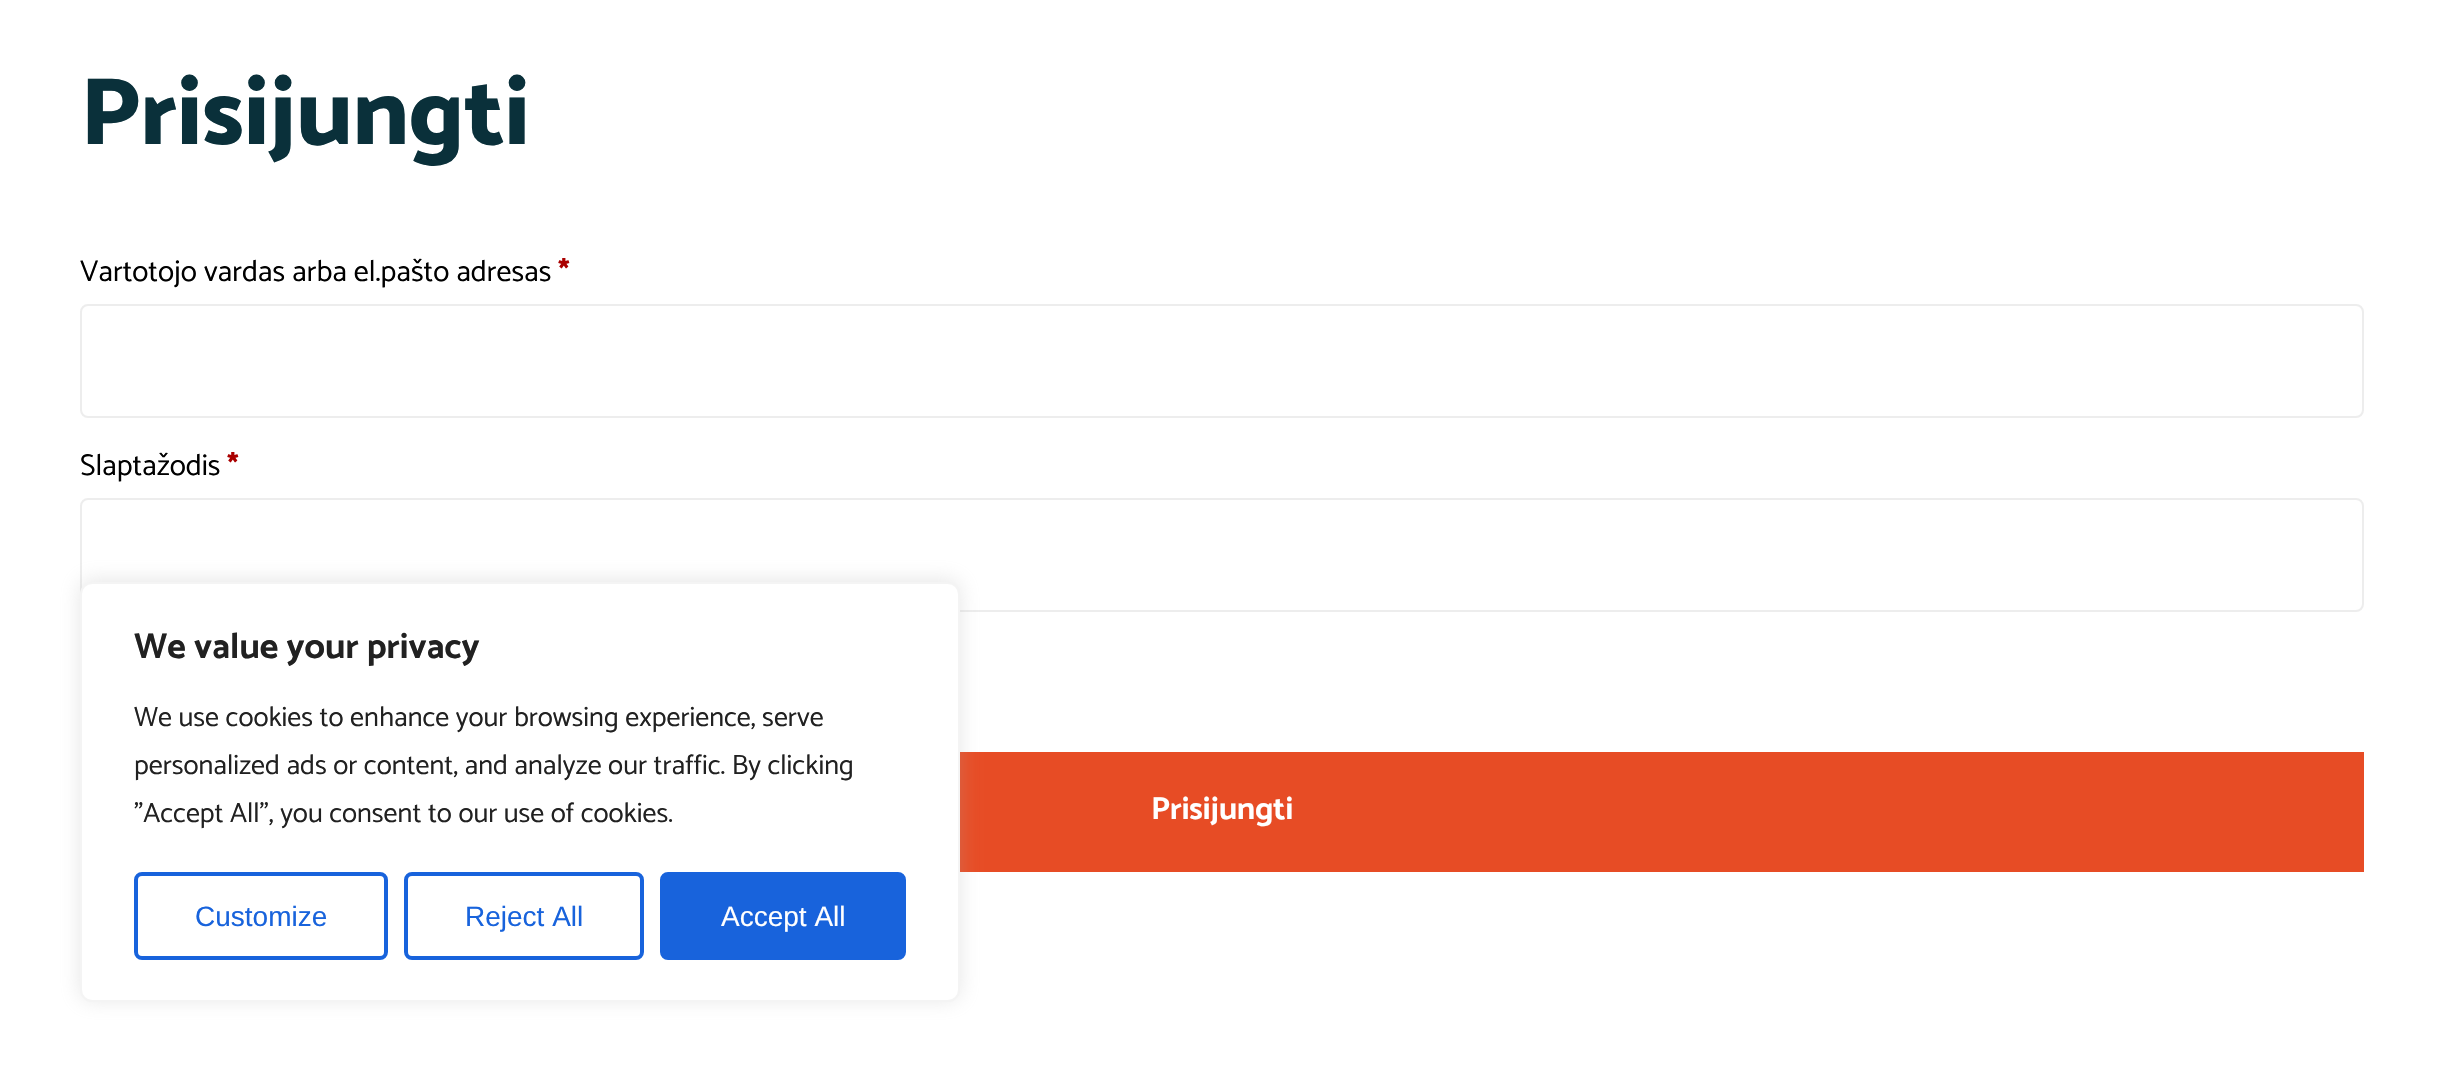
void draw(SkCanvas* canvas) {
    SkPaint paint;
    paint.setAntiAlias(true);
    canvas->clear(0xFFFFFFFF);
    SkFont font1(fontMgr->matchFamilyStyle("Catamaran", SkFontStyle(800, SkFontStyle::kNormal_Width, SkFontStyle::kUpright_Slant)), 96);
    font1.setSubpixel(true);
    paint.setColor(0xFF0A303A);
    canvas->drawString("Prisijungti", 80, 144, font1, paint);
    SkFont font2(fontMgr->matchFamilyStyle("Catamaran", SkFontStyle::Normal()), 30);
    font2.setSubpixel(true);
    paint.setColor(0xFF000000);
    canvas->drawString("Vartotojo vardas arba el.pašto adresas", 80, 281, font2, paint);
    SkFont font3(fontMgr->matchFamilyStyle("Catamaran", SkFontStyle::Bold()), 30);
    font3.setSubpixel(true);
    paint.setColor(0xFFAA0000);
    canvas->drawString("*", 558, 281, font3, paint);
    paint.setStyle(SkPaint::kStroke_Style);
    paint.setStrokeWidth(2);
    paint.setColor(0xFFEDEDED);
    canvas->drawRoundRect(SkRect::MakeXYWH(81, 305, 2282, 112), 7, 7, paint);
    paint.setStyle(SkPaint::kFill_Style);
    paint.setColor(0xFF000000);
    canvas->drawString("Slaptažodis", 80, 475, font2, paint);
    paint.setColor(0xFFAA0000);
    canvas->drawString("*", 227, 475, font3, paint);
    paint.setStyle(SkPaint::kStroke_Style);
    paint.setColor(0xFFEDEDED);
    canvas->drawRoundRect(SkRect::MakeXYWH(81, 499, 2282, 112), 7, 7, paint);
    paint.setStyle(SkPaint::kFill_Style);
    paint.setColor(0xFFE74C25);
    canvas->drawRect(SkRect::MakeXYWH(960, 752, 1404, 120), paint);
    SkFont font4(fontMgr->matchFamilyStyle("Catamaran", SkFontStyle::Bold()), 32);
    font4.setSubpixel(true);
    paint.setColor(0xFFFFFFFF);
    canvas->drawString("Prisijungti", 1151, 819, font4, paint);
    paint.setColor(0x4DACABAB);
    paint.setMaskFilter(SkMaskFilter::MakeBlur(kNormal_SkBlurStyle, 10));
    canvas->drawRoundRect(SkRect::MakeXYWH(80, 580, 880, 420), 12, 12, paint);
    paint.setMaskFilter(nullptr);
    paint.setColor(0xFFFFFFFF);
    canvas->drawRoundRect(SkRect::MakeXYWH(81, 583, 878, 418), 11, 11, paint);
    paint.setStyle(SkPaint::kStroke_Style);
    paint.setColor(0xFFF4F4F4);
    canvas->drawRoundRect(SkRect::MakeXYWH(81, 583, 878, 418), 11, 11, paint);
    SkFont font5(fontMgr->matchFamilyStyle("Catamaran", SkFontStyle::Bold()), 36);
    font5.setSubpixel(true);
    paint.setStyle(SkPaint::kFill_Style);
    paint.setColor(0xFF212121);
    canvas->drawString("We value your privacy", 134, 658, font5, paint);
    SkFont font6(fontMgr->matchFamilyStyle("Catamaran", SkFontStyle::Normal()), 28);
    font6.setSubpixel(true);
    canvas->drawString("We use cookies to enhance your browsing experience, serve", 134, 726, font6, paint);
    canvas->drawString("personalized ads or content, and analyze our traffic. By clicking", 134, 774, font6, paint);
    canvas->drawString("\"Accept All\", you consent to our use of cookies.", 134, 822, font6, paint);
    paint.setStyle(SkPaint::kStroke_Style);
    paint.setStrokeWidth(4);
    paint.setColor(0xFF1863DC);
    canvas->drawRoundRect(SkRect::MakeXYWH(136, 874, 250, 84), 6, 6, paint);
    SkFont font7(fontMgr->matchFamilyStyle("Liberation Sans", SkFontStyle::Normal()), 28);
    font7.setSubpixel(true);
    paint.setStyle(SkPaint::kFill_Style);
    canvas->drawString("Customize", 195, 926, font7, paint);
    paint.setStyle(SkPaint::kStroke_Style);
    canvas->drawRoundRect(SkRect::MakeXYWH(406, 874, 236, 84), 6, 6, paint);
    paint.setStyle(SkPaint::kFill_Style);
    canvas->drawString("Reject All", 465, 926, font7, paint);
    canvas->drawRoundRect(SkRect::MakeXYWH(662, 874, 242, 84), 6, 6, paint);
    paint.setStyle(SkPaint::kStroke_Style);
    canvas->drawRoundRect(SkRect::MakeXYWH(662, 874, 242, 84), 6, 6, paint);
    paint.setStyle(SkPaint::kFill_Style);
    paint.setColor(0xFFFFFFFF);
    canvas->drawString("Accept All", 721, 926, font7, paint);
}
